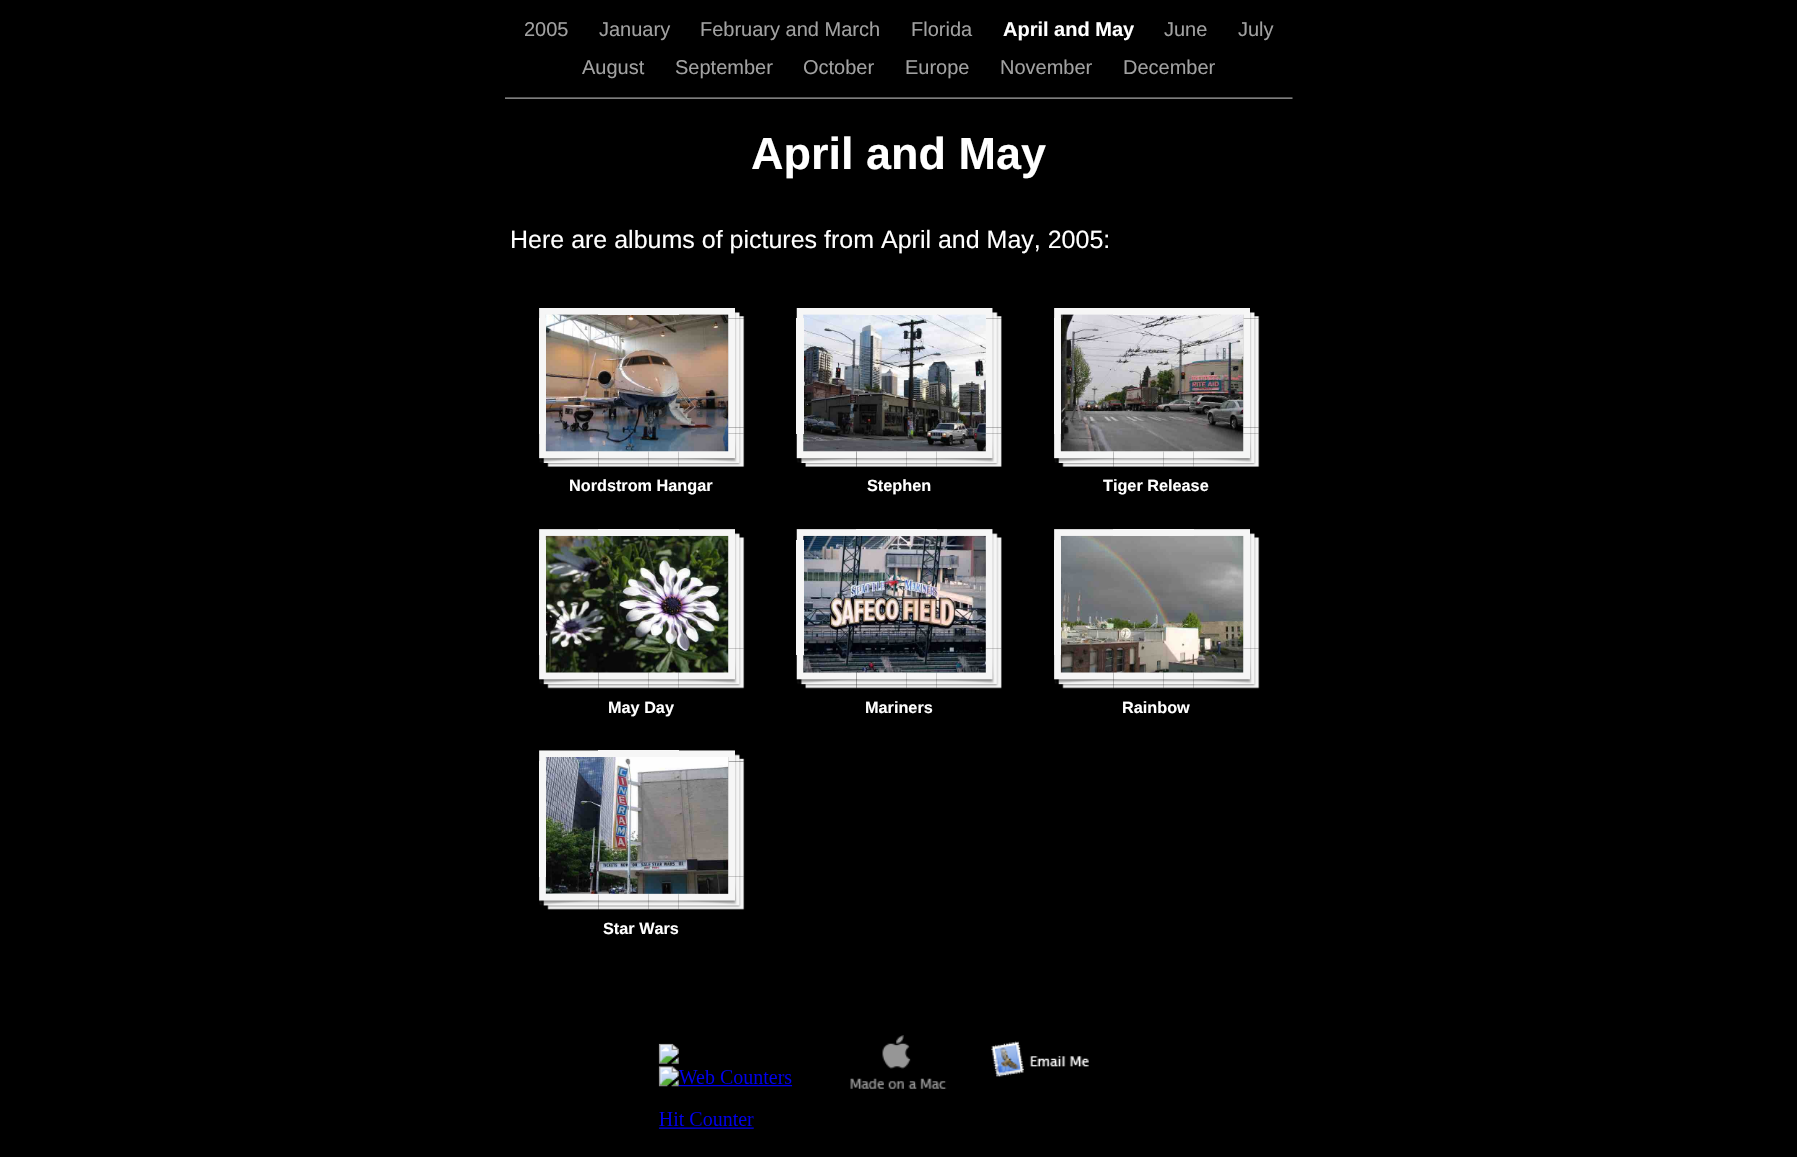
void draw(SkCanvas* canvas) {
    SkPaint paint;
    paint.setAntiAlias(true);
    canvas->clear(0xFF000000);
    SkFont font1(fontMgr->matchFamilyStyle("Liberation Sans", SkFontStyle::Normal()), 20);
    font1.setSubpixel(true);
    paint.setColor(0xFFA1A1A1);
    canvas->drawString("2005", 524, 36, font1, paint);
    canvas->drawString("January", 599, 36, font1, paint);
    canvas->drawString("February and March", 700, 36, font1, paint);
    canvas->drawString("Florida", 911, 36, font1, paint);
    SkFont font2(fontMgr->matchFamilyStyle("Liberation Sans", SkFontStyle::Bold()), 20);
    font2.setSubpixel(true);
    paint.setColor(0xFFFFFFFF);
    canvas->drawString("April and May", 1003, 36, font2, paint);
    paint.setColor(0xFFA1A1A1);
    canvas->drawString("June", 1164, 36, font1, paint);
    canvas->drawString("July", 1238, 36, font1, paint);
    canvas->drawString("August", 582, 74, font1, paint);
    canvas->drawString("September", 675, 74, font1, paint);
    canvas->drawString("October", 803, 74, font1, paint);
    canvas->drawString("Europe", 905, 74, font1, paint);
    canvas->drawString("November", 1000, 74, font1, paint);
    canvas->drawString("December", 1123, 74, font1, paint);
    canvas->drawImageRect(SkImages::DeferredFromEncodedData(SkData::MakeFromFileName("img1.png")), SkRect::MakeXYWH(505, 97, 788, 2), SkSamplingOptions());
    SkFont font3(fontMgr->matchFamilyStyle("Liberation Sans", SkFontStyle::Bold()), 45);
    font3.setSubpixel(true);
    paint.setColor(0xFFFFFFFF);
    canvas->drawString("April and May", 751, 169, font3, paint);
    SkFont font4(fontMgr->matchFamilyStyle("Liberation Sans", SkFontStyle::Normal()), 25);
    font4.setSubpixel(true);
    canvas->drawString("Here are albums of pictures from April and May, 2005:", 510, 248, font4, paint);
    canvas->drawImageRect(SkImages::DeferredFromEncodedData(SkData::MakeFromFileName("img4.png")), SkRect::MakeXYWH(545, 314, 184, 139), SkSamplingOptions());
    canvas->drawImageRect(SkImages::DeferredFromEncodedData(SkData::MakeFromFileName("img2.png")), SkRect::MakeXYWH(539, 308, 59, 10), SkSamplingOptions());
    paint.setColor(0xFFF6F6F6);
    canvas->drawRect(SkRect::MakeXYWH(598, 308, 81, 7), paint);
    canvas->drawImageRect(SkImages::DeferredFromEncodedData(SkData::MakeFromFileName("img3.png")), SkRect::MakeXYWH(679, 308, 66, 11), SkSamplingOptions());
    canvas->drawRect(SkRect::MakeXYWH(539, 318, 7, 116), paint);
    canvas->drawImageRect(SkImages::DeferredFromEncodedData(SkData::MakeFromFileName("img5.png")), SkRect::MakeXYWH(728, 318, 17, 110), SkSamplingOptions());
    canvas->drawImageRect(SkImages::DeferredFromEncodedData(SkData::MakeFromFileName("img10.png")), SkRect::MakeXYWH(678, 433, 67, 34), SkSamplingOptions());
    canvas->drawImageRect(SkImages::DeferredFromEncodedData(SkData::MakeFromFileName("img6.png")), SkRect::MakeXYWH(728, 427, 17, 7), SkSamplingOptions());
    canvas->drawImageRect(SkImages::DeferredFromEncodedData(SkData::MakeFromFileName("img7.png")), SkRect::MakeXYWH(539, 434, 60, 33), SkSamplingOptions());
    canvas->drawImageRect(SkImages::DeferredFromEncodedData(SkData::MakeFromFileName("img8.png")), SkRect::MakeXYWH(598, 451, 51, 16), SkSamplingOptions());
    canvas->drawImageRect(SkImages::DeferredFromEncodedData(SkData::MakeFromFileName("img9.png")), SkRect::MakeXYWH(648, 451, 31, 16), SkSamplingOptions());
    SkFont font5(fontMgr->matchFamilyStyle("Liberation Sans", SkFontStyle::Bold()), 16.25f);
    font5.setSubpixel(true);
    paint.setColor(0xFFFFFFFF);
    canvas->drawString("Nordstrom Hangar", 569, 491, font5, paint);
    canvas->drawImageRect(SkImages::DeferredFromEncodedData(SkData::MakeFromFileName("img13.png")), SkRect::MakeXYWH(803, 314, 184, 139), SkSamplingOptions());
    canvas->drawImageRect(SkImages::DeferredFromEncodedData(SkData::MakeFromFileName("img11.png")), SkRect::MakeXYWH(796, 308, 60, 10), SkSamplingOptions());
    paint.setColor(0xFFF6F6F6);
    canvas->drawRect(SkRect::MakeXYWH(856, 308, 81, 7), paint);
    canvas->drawImageRect(SkImages::DeferredFromEncodedData(SkData::MakeFromFileName("img12.png")), SkRect::MakeXYWH(937, 308, 65, 11), SkSamplingOptions());
    canvas->drawRect(SkRect::MakeXYWH(796, 318, 8, 116), paint);
    canvas->drawImageRect(SkImages::DeferredFromEncodedData(SkData::MakeFromFileName("img14.png")), SkRect::MakeXYWH(985, 318, 17, 110), SkSamplingOptions());
    canvas->drawImageRect(SkImages::DeferredFromEncodedData(SkData::MakeFromFileName("img19.png")), SkRect::MakeXYWH(936, 433, 66, 34), SkSamplingOptions());
    canvas->drawImageRect(SkImages::DeferredFromEncodedData(SkData::MakeFromFileName("img15.png")), SkRect::MakeXYWH(985, 427, 17, 7), SkSamplingOptions());
    canvas->drawImageRect(SkImages::DeferredFromEncodedData(SkData::MakeFromFileName("img16.png")), SkRect::MakeXYWH(796, 434, 61, 33), SkSamplingOptions());
    canvas->drawImageRect(SkImages::DeferredFromEncodedData(SkData::MakeFromFileName("img17.png")), SkRect::MakeXYWH(856, 451, 51, 16), SkSamplingOptions());
    canvas->drawImageRect(SkImages::DeferredFromEncodedData(SkData::MakeFromFileName("img18.png")), SkRect::MakeXYWH(906, 451, 31, 16), SkSamplingOptions());
    paint.setColor(0xFFFFFFFF);
    canvas->drawString("Stephen", 867, 491, font5, paint);
    canvas->drawImageRect(SkImages::DeferredFromEncodedData(SkData::MakeFromFileName("img22.png")), SkRect::MakeXYWH(1060, 314, 184, 139), SkSamplingOptions());
    canvas->drawImageRect(SkImages::DeferredFromEncodedData(SkData::MakeFromFileName("img20.png")), SkRect::MakeXYWH(1054, 308, 59, 10), SkSamplingOptions());
    paint.setColor(0xFFF6F6F6);
    canvas->drawRect(SkRect::MakeXYWH(1113, 308, 81, 7), paint);
    canvas->drawImageRect(SkImages::DeferredFromEncodedData(SkData::MakeFromFileName("img21.png")), SkRect::MakeXYWH(1194, 308, 66, 11), SkSamplingOptions());
    canvas->drawRect(SkRect::MakeXYWH(1054, 318, 7, 116), paint);
    canvas->drawImageRect(SkImages::DeferredFromEncodedData(SkData::MakeFromFileName("img23.png")), SkRect::MakeXYWH(1243, 318, 17, 110), SkSamplingOptions());
    canvas->drawImageRect(SkImages::DeferredFromEncodedData(SkData::MakeFromFileName("img28.png")), SkRect::MakeXYWH(1193, 433, 67, 34), SkSamplingOptions());
    canvas->drawImageRect(SkImages::DeferredFromEncodedData(SkData::MakeFromFileName("img24.png")), SkRect::MakeXYWH(1243, 427, 17, 7), SkSamplingOptions());
    canvas->drawImageRect(SkImages::DeferredFromEncodedData(SkData::MakeFromFileName("img25.png")), SkRect::MakeXYWH(1054, 434, 60, 33), SkSamplingOptions());
    canvas->drawImageRect(SkImages::DeferredFromEncodedData(SkData::MakeFromFileName("img26.png")), SkRect::MakeXYWH(1113, 451, 51, 16), SkSamplingOptions());
    canvas->drawImageRect(SkImages::DeferredFromEncodedData(SkData::MakeFromFileName("img27.png")), SkRect::MakeXYWH(1163, 451, 31, 16), SkSamplingOptions());
    paint.setColor(0xFFFFFFFF);
    canvas->drawString("Tiger Release", 1103, 491, font5, paint);
    canvas->drawImageRect(SkImages::DeferredFromEncodedData(SkData::MakeFromFileName("img31.png")), SkRect::MakeXYWH(545, 535, 184, 139), SkSamplingOptions());
    canvas->drawImageRect(SkImages::DeferredFromEncodedData(SkData::MakeFromFileName("img29.png")), SkRect::MakeXYWH(539, 529, 59, 11), SkSamplingOptions());
    paint.setColor(0xFFF6F6F6);
    canvas->drawRect(SkRect::MakeXYWH(598, 529, 81, 7), paint);
    canvas->drawImageRect(SkImages::DeferredFromEncodedData(SkData::MakeFromFileName("img30.png")), SkRect::MakeXYWH(679, 529, 66, 11), SkSamplingOptions());
    canvas->drawRect(SkRect::MakeXYWH(539, 540, 7, 115), paint);
    canvas->drawImageRect(SkImages::DeferredFromEncodedData(SkData::MakeFromFileName("img32.png")), SkRect::MakeXYWH(728, 540, 17, 109), SkSamplingOptions());
    canvas->drawImageRect(SkImages::DeferredFromEncodedData(SkData::MakeFromFileName("img33.png")), SkRect::MakeXYWH(728, 648, 17, 7), SkSamplingOptions());
    canvas->drawImageRect(SkImages::DeferredFromEncodedData(SkData::MakeFromFileName("img34.png")), SkRect::MakeXYWH(539, 655, 60, 34), SkSamplingOptions());
    canvas->drawImageRect(SkImages::DeferredFromEncodedData(SkData::MakeFromFileName("img35.png")), SkRect::MakeXYWH(598, 672, 51, 17), SkSamplingOptions());
    canvas->drawImageRect(SkImages::DeferredFromEncodedData(SkData::MakeFromFileName("img37.png")), SkRect::MakeXYWH(678, 655, 67, 34), SkSamplingOptions());
    canvas->drawImageRect(SkImages::DeferredFromEncodedData(SkData::MakeFromFileName("img36.png")), SkRect::MakeXYWH(648, 672, 31, 17), SkSamplingOptions());
    paint.setColor(0xFFFFFFFF);
    canvas->drawString("May Day", 608, 713, font5, paint);
    canvas->drawImageRect(SkImages::DeferredFromEncodedData(SkData::MakeFromFileName("img40.png")), SkRect::MakeXYWH(803, 535, 184, 139), SkSamplingOptions());
    canvas->drawImageRect(SkImages::DeferredFromEncodedData(SkData::MakeFromFileName("img38.png")), SkRect::MakeXYWH(796, 529, 60, 11), SkSamplingOptions());
    paint.setColor(0xFFF6F6F6);
    canvas->drawRect(SkRect::MakeXYWH(856, 529, 81, 7), paint);
    canvas->drawImageRect(SkImages::DeferredFromEncodedData(SkData::MakeFromFileName("img39.png")), SkRect::MakeXYWH(937, 529, 65, 11), SkSamplingOptions());
    canvas->drawRect(SkRect::MakeXYWH(796, 540, 8, 115), paint);
    canvas->drawImageRect(SkImages::DeferredFromEncodedData(SkData::MakeFromFileName("img41.png")), SkRect::MakeXYWH(985, 540, 17, 109), SkSamplingOptions());
    canvas->drawImageRect(SkImages::DeferredFromEncodedData(SkData::MakeFromFileName("img42.png")), SkRect::MakeXYWH(985, 648, 17, 7), SkSamplingOptions());
    canvas->drawImageRect(SkImages::DeferredFromEncodedData(SkData::MakeFromFileName("img43.png")), SkRect::MakeXYWH(796, 655, 61, 34), SkSamplingOptions());
    canvas->drawImageRect(SkImages::DeferredFromEncodedData(SkData::MakeFromFileName("img44.png")), SkRect::MakeXYWH(856, 672, 51, 17), SkSamplingOptions());
    canvas->drawImageRect(SkImages::DeferredFromEncodedData(SkData::MakeFromFileName("img46.png")), SkRect::MakeXYWH(936, 655, 66, 34), SkSamplingOptions());
    canvas->drawImageRect(SkImages::DeferredFromEncodedData(SkData::MakeFromFileName("img45.png")), SkRect::MakeXYWH(906, 672, 31, 17), SkSamplingOptions());
    paint.setColor(0xFFFFFFFF);
    canvas->drawString("Mariners", 865, 713, font5, paint);
    canvas->drawImageRect(SkImages::DeferredFromEncodedData(SkData::MakeFromFileName("img49.png")), SkRect::MakeXYWH(1060, 535, 184, 139), SkSamplingOptions());
    canvas->drawImageRect(SkImages::DeferredFromEncodedData(SkData::MakeFromFileName("img47.png")), SkRect::MakeXYWH(1054, 529, 59, 11), SkSamplingOptions());
    paint.setColor(0xFFF6F6F6);
    canvas->drawRect(SkRect::MakeXYWH(1113, 529, 81, 7), paint);
    canvas->drawImageRect(SkImages::DeferredFromEncodedData(SkData::MakeFromFileName("img48.png")), SkRect::MakeXYWH(1194, 529, 66, 11), SkSamplingOptions());
    canvas->drawRect(SkRect::MakeXYWH(1054, 540, 7, 115), paint);
    canvas->drawImageRect(SkImages::DeferredFromEncodedData(SkData::MakeFromFileName("img50.png")), SkRect::MakeXYWH(1243, 540, 17, 109), SkSamplingOptions());
    canvas->drawImageRect(SkImages::DeferredFromEncodedData(SkData::MakeFromFileName("img51.png")), SkRect::MakeXYWH(1243, 648, 17, 7), SkSamplingOptions());
    canvas->drawImageRect(SkImages::DeferredFromEncodedData(SkData::MakeFromFileName("img52.png")), SkRect::MakeXYWH(1054, 655, 60, 34), SkSamplingOptions());
    canvas->drawImageRect(SkImages::DeferredFromEncodedData(SkData::MakeFromFileName("img53.png")), SkRect::MakeXYWH(1113, 672, 51, 17), SkSamplingOptions());
    canvas->drawImageRect(SkImages::DeferredFromEncodedData(SkData::MakeFromFileName("img55.png")), SkRect::MakeXYWH(1193, 655, 67, 34), SkSamplingOptions());
    canvas->drawImageRect(SkImages::DeferredFromEncodedData(SkData::MakeFromFileName("img54.png")), SkRect::MakeXYWH(1163, 672, 31, 17), SkSamplingOptions());
    paint.setColor(0xFFFFFFFF);
    canvas->drawString("Rainbow", 1122, 713, font5, paint);
    canvas->drawImageRect(SkImages::DeferredFromEncodedData(SkData::MakeFromFileName("img58.png")), SkRect::MakeXYWH(545, 757, 184, 138), SkSamplingOptions());
    canvas->drawImageRect(SkImages::DeferredFromEncodedData(SkData::MakeFromFileName("img56.png")), SkRect::MakeXYWH(539, 750, 59, 11), SkSamplingOptions());
    paint.setColor(0xFFF6F6F6);
    canvas->drawRect(SkRect::MakeXYWH(598, 750, 81, 7), paint);
    canvas->drawImageRect(SkImages::DeferredFromEncodedData(SkData::MakeFromFileName("img57.png")), SkRect::MakeXYWH(679, 750, 66, 12), SkSamplingOptions());
    canvas->drawRect(SkRect::MakeXYWH(539, 761, 7, 116), paint);
    canvas->drawImageRect(SkImages::DeferredFromEncodedData(SkData::MakeFromFileName("img59.png")), SkRect::MakeXYWH(728, 761, 17, 109), SkSamplingOptions());
    canvas->drawImageRect(SkImages::DeferredFromEncodedData(SkData::MakeFromFileName("img64.png")), SkRect::MakeXYWH(678, 876, 67, 34), SkSamplingOptions());
    canvas->drawImageRect(SkImages::DeferredFromEncodedData(SkData::MakeFromFileName("img60.png")), SkRect::MakeXYWH(728, 870, 17, 7), SkSamplingOptions());
    canvas->drawImageRect(SkImages::DeferredFromEncodedData(SkData::MakeFromFileName("img61.png")), SkRect::MakeXYWH(539, 877, 60, 33), SkSamplingOptions());
    canvas->drawImageRect(SkImages::DeferredFromEncodedData(SkData::MakeFromFileName("img62.png")), SkRect::MakeXYWH(598, 893, 51, 17), SkSamplingOptions());
    canvas->drawImageRect(SkImages::DeferredFromEncodedData(SkData::MakeFromFileName("img63.png")), SkRect::MakeXYWH(648, 893, 31, 17), SkSamplingOptions());
    paint.setColor(0xFFFFFFFF);
    canvas->drawString("Star Wars", 603, 934, font5, paint);
    canvas->drawImageRect(SkImages::DeferredFromEncodedData(SkData::MakeFromFileName("img65.png")), SkRect::MakeXYWH(658, 1043, 135, 86), SkSamplingOptions());
    canvas->drawImageRect(SkImages::DeferredFromEncodedData(SkData::MakeFromFileName("img66.png")), SkRect::MakeXYWH(850, 1035, 97, 54), SkSamplingOptions());
    canvas->drawImageRect(SkImages::DeferredFromEncodedData(SkData::MakeFromFileName("img67.png")), SkRect::MakeXYWH(991, 1041, 98, 37), SkSamplingOptions());
}
